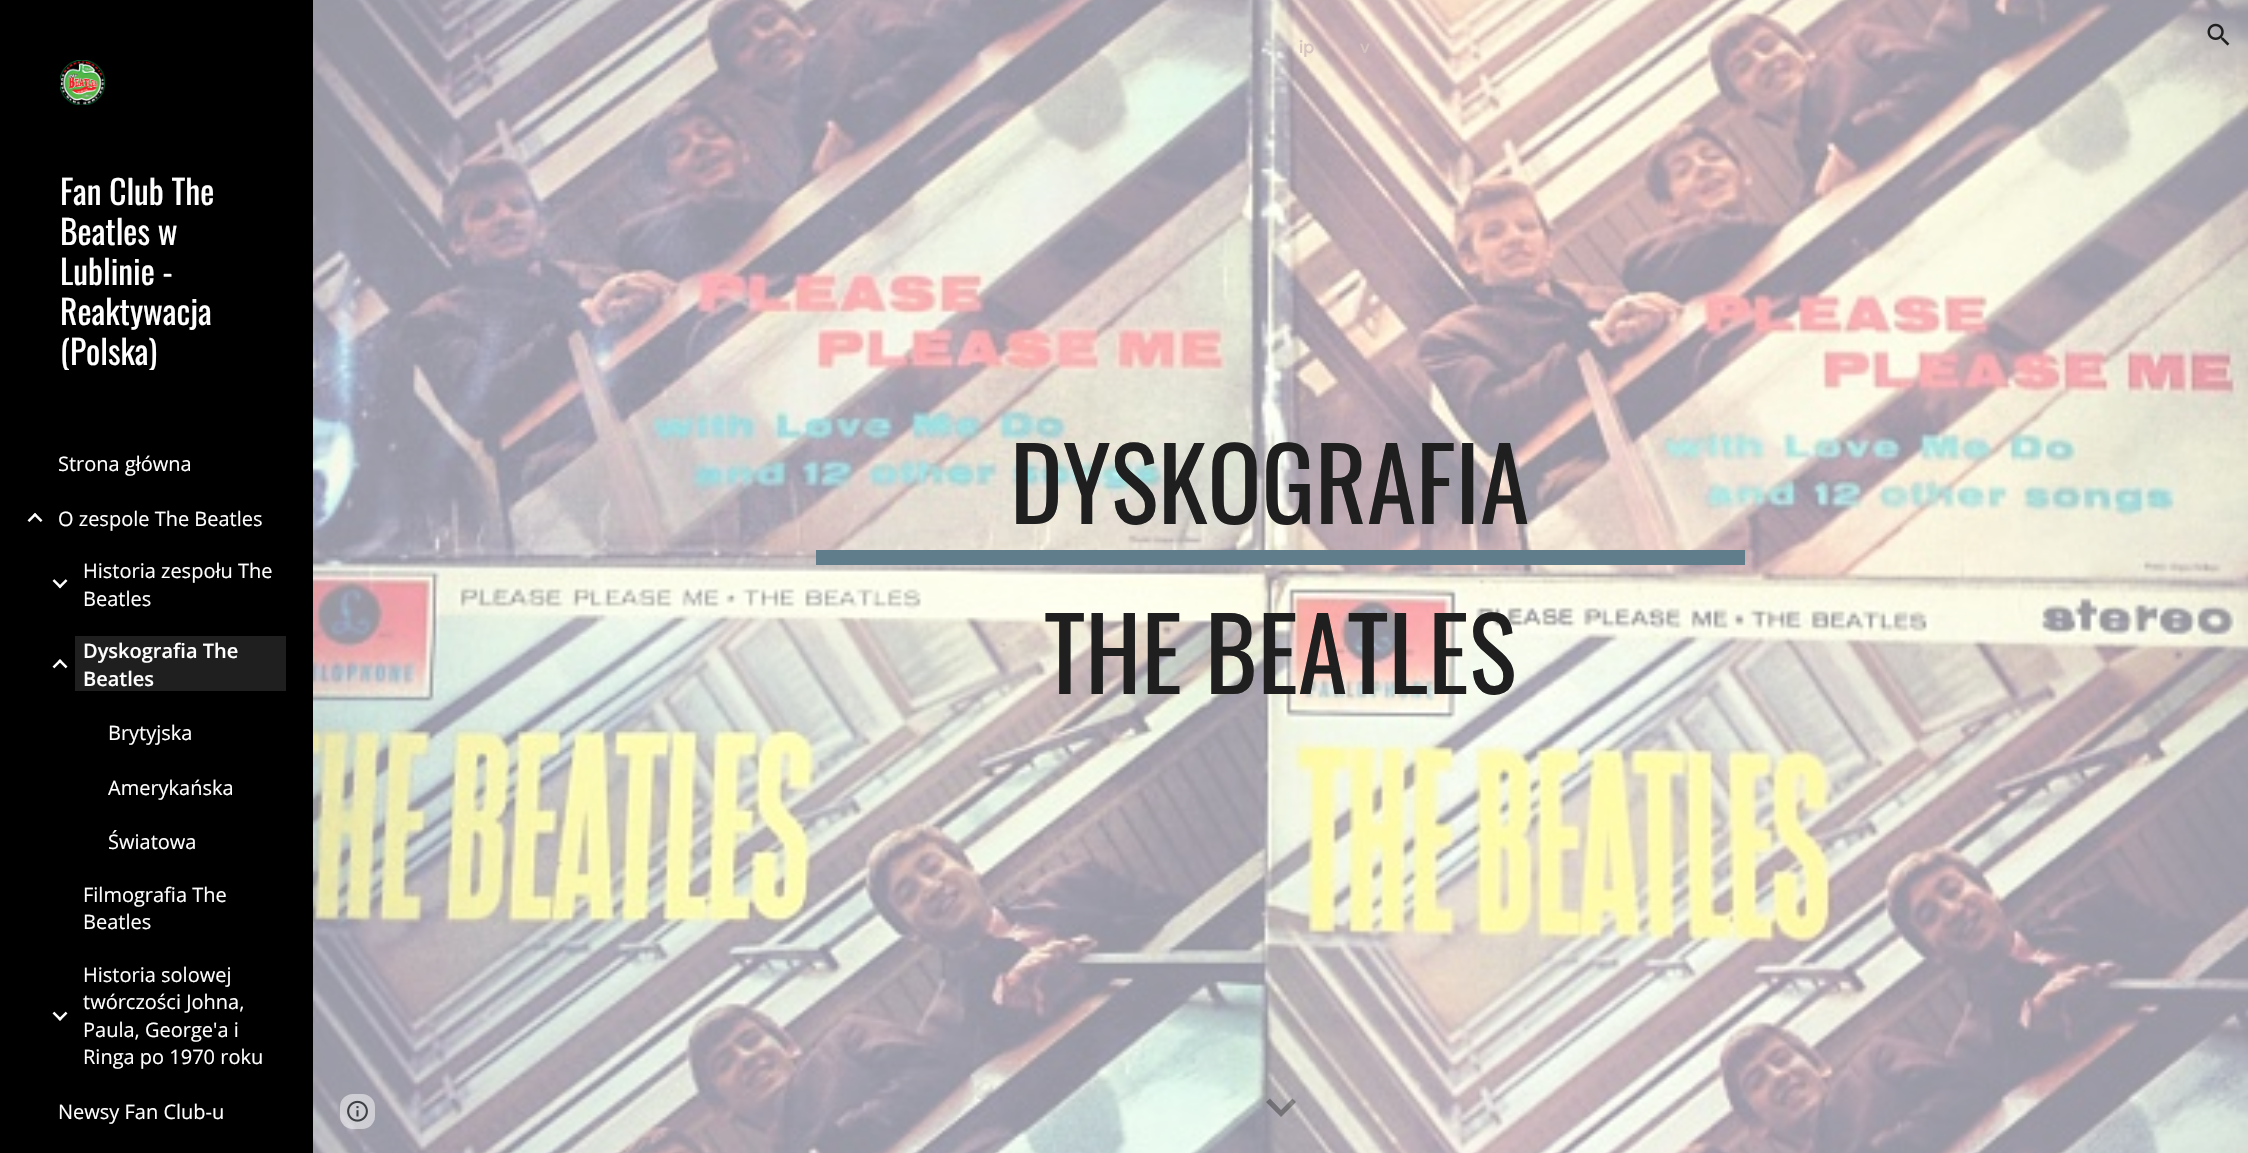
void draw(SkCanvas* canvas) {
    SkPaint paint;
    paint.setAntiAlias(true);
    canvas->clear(0xFFFFFFFF);
    canvas->drawImageRect(SkImages::DeferredFromEncodedData(SkData::MakeFromFileName("img7.png")), SkRect::MakeXYWH(313, 0, 1935, 1153), SkSamplingOptions());
    SkFont font1(fontMgr->matchFamilyStyle("Google Sans", SkFontStyle(500, SkFontStyle::kNormal_Width, SkFontStyle::kUpright_Slant)), 18);
    font1.setSubpixel(true);
    paint.setColor(0xFFD7C4C1);
    canvas->drawString("ip", 1299, 53, font1, paint);
    canvas->drawString("v", 1360, 53, font1, paint);
    canvas->drawImageRect(SkImages::DeferredFromEncodedData(SkData::MakeFromFileName("img1.png")), SkRect::MakeXYWH(2207, 23, 23, 23), SkSamplingOptions());
    paint.setColor(0xFF000000);
    canvas->drawRect(SkRect::MakeXYWH(0, 0, 313, 1153), paint);
    canvas->drawImageRect(SkImages::DeferredFromEncodedData(SkData::MakeFromFileName("img2.png")), SkRect::MakeXYWH(60, 60, 45, 45), SkSamplingOptions());
    SkFont font2(fontMgr->matchFamilyStyle("Oswald", SkFontStyle::Normal()), 33.5f);
    font2.setSubpixel(true);
    paint.setColor(0xFFFFFFFF);
    canvas->drawString("Fan Club The", 60, 205, font2, paint);
    canvas->drawString("Beatles w", 60, 245, font2, paint);
    canvas->drawString("Lublinie -", 60, 285, font2, paint);
    canvas->drawString("Reaktywacja", 60, 325, font2, paint);
    canvas->save();
    canvas->clipRect(SkRect::MakeXYWH(60, 170, 213, 200));
    canvas->drawString("(Polska)", 60, 365, font2, paint);
    canvas->restore();
    SkFont font3(fontMgr->matchFamilyStyle("Open Sans", SkFontStyle::Normal()), 20);
    font3.setSubpixel(true);
    canvas->drawString("Strona główna", 58, 471, font3, paint);
    canvas->drawImageRect(SkImages::DeferredFromEncodedData(SkData::MakeFromFileName("img3.png")), SkRect::MakeXYWH(27, 513, 16, 9), SkSamplingOptions());
    canvas->drawString("O zespole The Beatles", 58, 526, font3, paint);
    canvas->drawImageRect(SkImages::DeferredFromEncodedData(SkData::MakeFromFileName("img4.png")), SkRect::MakeXYWH(52, 579, 16, 10), SkSamplingOptions());
    canvas->drawString("Historia zespołu The", 83, 578, font3, paint);
    canvas->drawString("Beatles", 83, 606, font3, paint);
    canvas->drawImageRect(SkImages::DeferredFromEncodedData(SkData::MakeFromFileName("img5.png")), SkRect::MakeXYWH(52, 659, 16, 10), SkSamplingOptions());
    paint.setColor(0xFF1F1F1F);
    canvas->drawRect(SkRect::MakeXYWH(75, 636, 211, 55), paint);
    SkFont font4(fontMgr->matchFamilyStyle("Open Sans", SkFontStyle(600, SkFontStyle::kNormal_Width, SkFontStyle::kUpright_Slant)), 20);
    font4.setSubpixel(true);
    paint.setColor(0xFFFFFFFF);
    canvas->drawString("Dyskografia The", 83, 658, font4, paint);
    canvas->drawString("Beatles", 83, 686, font4, paint);
    canvas->drawString("Brytyjska", 108, 740, font3, paint);
    canvas->drawString("Amerykańska", 108, 795, font3, paint);
    canvas->drawString("Światowa", 108, 849, font3, paint);
    canvas->drawString("Filmografia The", 83, 902, font3, paint);
    canvas->drawString("Beatles", 83, 929, font3, paint);
    canvas->drawImageRect(SkImages::DeferredFromEncodedData(SkData::MakeFromFileName("img6.png")), SkRect::MakeXYWH(52, 1011, 16, 10), SkSamplingOptions());
    canvas->drawString("Historia solowej", 83, 982, font3, paint);
    canvas->drawString("twórczości Johna,", 83, 1009, font3, paint);
    canvas->drawString("Paula, George'a i", 83, 1037, font3, paint);
    canvas->drawString("Ringa po 1970 roku", 83, 1064, font3, paint);
    canvas->drawString("Newsy Fan Club-u", 58, 1119, font3, paint);
    SkFont font5(fontMgr->matchFamilyStyle("Oswald", SkFontStyle::Normal()), 100);
    font5.setSubpixel(true);
    paint.setColor(0xFF1F1F1F);
    canvas->drawString("DYSKOGRAFIA", 1010, 524, font5, paint);
    paint.setColor(0xFF607D8B);
    canvas->drawRect(SkRect::MakeXYWH(816, 550, 929, 15), paint);
    paint.setColor(0xFF1F1F1F);
    canvas->drawString("THE BEATLES", 1044, 694, font5, paint);
    paint.setColor(0x661F1F1F);
    canvas->drawPath(SkPathBuilder().moveTo(1270, 1098.5f).lineTo(1281, 1110).lineTo(1292.5f, 1098.5f).lineTo(1296, 1102).lineTo(1281, 1117).lineTo(1266, 1102).close().detach(), paint);
    paint.setColor(0x80FFFFFF);
    canvas->drawRoundRect(SkRect::MakeXYWH(340, 1094, 35, 35), 13, 13, paint);
    canvas->drawImageRect(SkImages::DeferredFromEncodedData(SkData::MakeFromFileName("img8.png")), SkRect::MakeXYWH(347, 1100, 21, 22), SkSamplingOptions());
}
